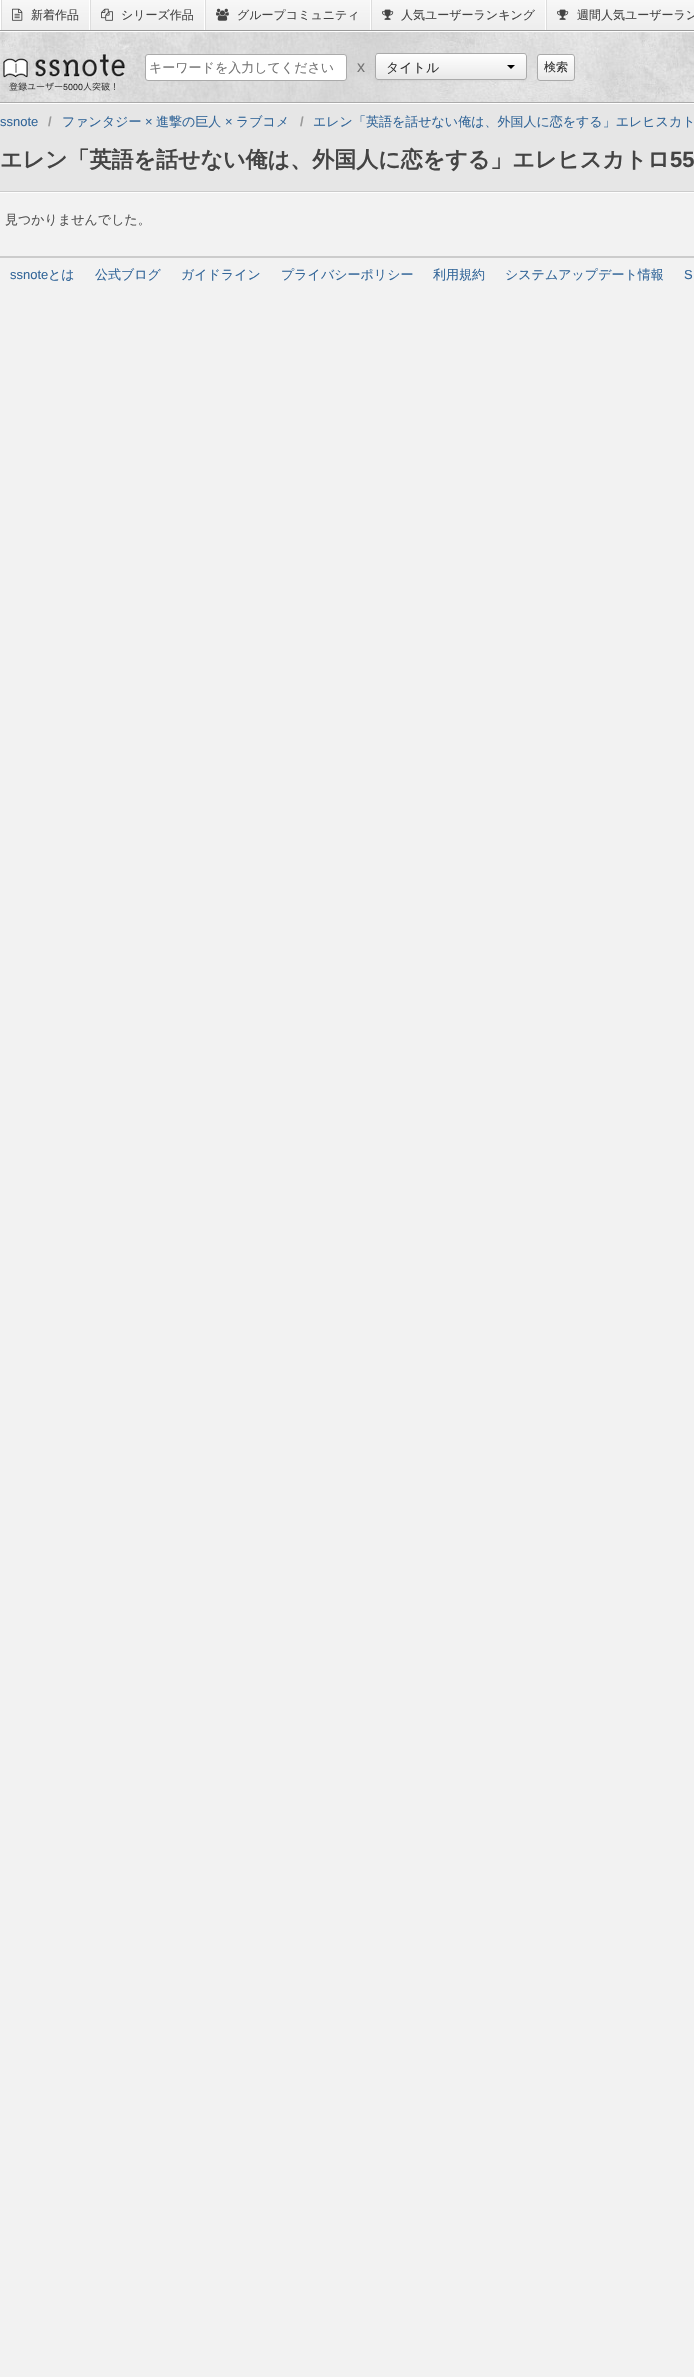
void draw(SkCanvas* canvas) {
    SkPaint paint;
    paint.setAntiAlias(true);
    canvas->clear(0xFFF2F2F2);
    canvas->drawImageRect(SkImages::DeferredFromEncodedData(SkData::MakeFromFileName("img1.png")), SkRect::MakeXYWH(2, 0, 692, 30), SkSamplingOptions());
    paint.setColor(0xFF999999);
    canvas->drawRect(SkRect::MakeXYWH(0, 30, 694, 1), paint);
    paint.setColor(0xFFFFFFFF);
    canvas->drawRect(SkRect::MakeXYWH(0, 0, 1, 30), paint);
    canvas->drawRect(SkRect::MakeXYWH(89, 0, 1, 30), paint);
    paint.setColor(0xFFDDDDDD);
    canvas->drawRect(SkRect::MakeXYWH(1, 0, 1, 30), paint);
    canvas->drawImageRect(SkImages::DeferredFromEncodedData(SkData::MakeFromFileName("img2.png")), SkRect::MakeXYWH(12, 8, 11, 13), SkSamplingOptions());
    SkFont font1(fontMgr->matchFamilyStyle("WenQuanYi Zen Hei", SkFontStyle(500, SkFontStyle::kNormal_Width, SkFontStyle::kUpright_Slant)), 12);
    font1.setSubpixel(true);
    paint.setColor(0xFF444444);
    canvas->drawString("新着作品", 31, 19, font1, paint);
    paint.setColor(0xFFFFFFFF);
    canvas->drawRect(SkRect::MakeXYWH(204, 0, 1, 30), paint);
    paint.setColor(0xFFDDDDDD);
    canvas->drawRect(SkRect::MakeXYWH(90, 0, 1, 30), paint);
    canvas->drawImageRect(SkImages::DeferredFromEncodedData(SkData::MakeFromFileName("img3.png")), SkRect::MakeXYWH(101, 8, 12, 13), SkSamplingOptions());
    paint.setColor(0xFF444444);
    canvas->drawString("シリーズ作品", 121, 19, font1, paint);
    paint.setColor(0xFFFFFFFF);
    canvas->drawRect(SkRect::MakeXYWH(370, 0, 1, 30), paint);
    paint.setColor(0xFFDDDDDD);
    canvas->drawRect(SkRect::MakeXYWH(205, 0, 1, 30), paint);
    canvas->drawImageRect(SkImages::DeferredFromEncodedData(SkData::MakeFromFileName("img4.png")), SkRect::MakeXYWH(216, 8, 13, 13), SkSamplingOptions());
    paint.setColor(0xFF444444);
    canvas->drawString("グループコミュニティ", 237, 19, font1, paint);
    paint.setColor(0xFFFFFFFF);
    canvas->drawRect(SkRect::MakeXYWH(545, 0, 1, 30), paint);
    paint.setColor(0xFFDDDDDD);
    canvas->drawRect(SkRect::MakeXYWH(371, 0, 1, 30), paint);
    canvas->drawImageRect(SkImages::DeferredFromEncodedData(SkData::MakeFromFileName("img5.png")), SkRect::MakeXYWH(382, 9, 12, 11), SkSamplingOptions());
    paint.setColor(0xFF444444);
    canvas->drawString("人気ユーザーランキング", 401, 19, font1, paint);
    paint.setColor(0xFFDDDDDD);
    canvas->drawRect(SkRect::MakeXYWH(546, 0, 1, 30), paint);
    canvas->drawImageRect(SkImages::DeferredFromEncodedData(SkData::MakeFromFileName("img5.png")), SkRect::MakeXYWH(557, 9, 12, 11), SkSamplingOptions());
    paint.setColor(0xFF444444);
    canvas->drawString("週間人気ユーザーラン", 577, 19, font1, paint);
    canvas->drawImageRect(SkImages::DeferredFromEncodedData(SkData::MakeFromFileName("img6.png")), SkRect::MakeXYWH(0, 32, 694, 70), SkSamplingOptions());
    paint.setColor(0xFFFEFEFE);
    canvas->drawRect(SkRect::MakeXYWH(0, 31, 694, 1), paint);
    paint.setColor(0xFFAAAAAA);
    canvas->drawRect(SkRect::MakeXYWH(0, 102, 694, 1), paint);
    canvas->drawImageRect(SkImages::DeferredFromEncodedData(SkData::MakeFromFileName("img7.png")), SkRect::MakeXYWH(3, 54, 122, 37), SkSamplingOptions());
    paint.setColor(0xFFFFFFFF);
    canvas->drawRoundRect(SkRect::MakeXYWH(145.5f, 54.5f, 201, 26), 2.5f, 2.5f, paint);
    paint.setStyle(SkPaint::kStroke_Style);
    paint.setStrokeWidth(1);
    paint.setColor(0xFFAAAAAA);
    canvas->drawRoundRect(SkRect::MakeXYWH(145.5f, 54.5f, 201, 26), 2.5f, 2.5f, paint);
    SkFont font2(fontMgr->matchFamilyStyle("WenQuanYi Zen Hei", SkFontStyle(500, SkFontStyle::kNormal_Width, SkFontStyle::kUpright_Slant)), 13);
    font2.setSubpixel(true);
    paint.setStyle(SkPaint::kFill_Style);
    paint.setColor(0xFF757575);
    canvas->drawString("キーワードを入力してください", 149, 72, font2, paint);
    SkFont font3(fontMgr->matchFamilyStyle("Liberation Sans", SkFontStyle::Normal()), 16);
    font3.setSubpixel(true);
    canvas->drawString("x", 357, 72, font3, paint);
    paint.setColor(0x0D000000);
    paint.setMaskFilter(SkMaskFilter::MakeBlur(kNormal_SkBlurStyle, 1));
    canvas->drawRoundRect(SkRect::MakeXYWH(375, 54, 152, 27), 3, 3, paint);
    paint.setMaskFilter(nullptr);
    canvas->drawImageRect(SkImages::DeferredFromEncodedData(SkData::MakeFromFileName("img8.png")), SkRect::MakeXYWH(375, 54, 152, 26), SkSamplingOptions());
    paint.setColor(0x33FFFFFF);
    canvas->drawPath(SkPathBuilder().moveTo(378, 55).lineTo(524, 55).cubicTo(525, 55, 526, 56, 526, 57).cubicTo(526, 48, 503, 54, 500, 54).lineTo(377, 54).cubicTo(376, 55, 376, 56, 376, 57).cubicTo(376, 56, 377, 55, 378, 55).close().detach(), paint);
    paint.setStyle(SkPaint::kStroke_Style);
    paint.setColor(0xFFAAAAAA);
    canvas->drawRoundRect(SkRect::MakeXYWH(375.5f, 53.5f, 151, 26), 2.5f, 2.5f, paint);
    paint.setStyle(SkPaint::kFill_Style);
    paint.setColor(0xFF333333);
    canvas->drawString("タイトル", 386, 72, font2, paint);
    paint.setColor(0xFF000000);
    canvas->drawPath(SkPathBuilder().moveTo(507, 65).lineTo(515, 65).lineTo(511, 69).close().detach(), paint);
    canvas->drawImageRect(SkImages::DeferredFromEncodedData(SkData::MakeFromFileName("img9.png")), SkRect::MakeXYWH(538, 55, 37, 26), SkSamplingOptions());
    paint.setStyle(SkPaint::kStroke_Style);
    paint.setColor(0xFFAAAAAA);
    canvas->drawRoundRect(SkRect::MakeXYWH(537.5f, 54.5f, 37, 26), 2.5f, 2.5f, paint);
    paint.setStyle(SkPaint::kFill_Style);
    paint.setColor(0xFF333333);
    canvas->drawString("検索", 544, 71, font1, paint);
    paint.setColor(0xFFE6E6E6);
    canvas->drawRect(SkRect::MakeXYWH(0, 104, 694, 87), paint);
    paint.setColor(0xFFFFFFFF);
    canvas->drawRect(SkRect::MakeXYWH(0, 103, 694, 1), paint);
    paint.setColor(0xFFFEFEFE);
    canvas->drawRect(SkRect::MakeXYWH(0, 192, 694, 1), paint);
    paint.setColor(0xFFCCCCCC);
    canvas->drawRect(SkRect::MakeXYWH(0, 191, 694, 1), paint);
    SkFont font4(fontMgr->matchFamilyStyle("Liberation Sans", SkFontStyle::Normal()), 13);
    font4.setSubpixel(true);
    paint.setColor(0xFF336699);
    canvas->drawString("ssnote", 0, 126, font4, paint);
    SkFont font5(fontMgr->matchFamilyStyle("Liberation Sans", SkFontStyle::Bold()), 13);
    font5.setSubpixel(true);
    paint.setColor(0xFF999999);
    canvas->drawString("/", 48, 126, font5, paint);
    paint.setColor(0xFF336699);
    canvas->drawString("ファンタジー", 62, 126, font2, paint);
    canvas->drawString("×", 145, 126, font4, paint);
    canvas->drawString("進撃の巨人", 156, 126, font2, paint);
    canvas->drawString("×", 225, 126, font4, paint);
    canvas->drawString("ラブコメ", 236, 126, font2, paint);
    paint.setColor(0xFF999999);
    canvas->drawString("/", 300, 126, font5, paint);
    paint.setColor(0xFF336699);
    canvas->drawString("エレン「英語を話せない俺は、外国人に恋をする」エレヒスカト", 313, 126, font2, paint);
    SkFont font6(fontMgr->matchFamilyStyle("WenQuanYi Zen Hei", SkFontStyle::Bold()), 22);
    font6.setSubpixel(true);
    paint.setColor(0xFF444444);
    canvas->drawString("エレン「英語を話せない俺は、外国人に恋をする」エレヒスカトロ", 0, 167, font6, paint);
    SkFont font7(fontMgr->matchFamilyStyle("Liberation Sans", SkFontStyle::Bold()), 22);
    font7.setSubpixel(true);
    canvas->drawString("55", 670, 167, font7, paint);
    paint.setColor(0xFF555555);
    canvas->drawString("見つかりませんでした。", 5, 224, font2, paint);
    paint.setColor(0xFFCCCCCC);
    canvas->drawRect(SkRect::MakeXYWH(0, 256, 694, 2), paint);
    paint.setColor(0xFF336699);
    canvas->drawString("ssnote", 10, 279, font4, paint);
    canvas->drawString("とは", 48, 279, font2, paint);
    canvas->drawString("公式ブログ", 95, 279, font2, paint);
    canvas->drawString("ガイドライン", 181, 279, font2, paint);
    canvas->drawString("プライバシーポリシー", 281, 279, font2, paint);
    canvas->drawString("利用規約", 433, 279, font2, paint);
    canvas->drawString("システムアップデート情報", 505, 279, font2, paint);
    canvas->drawString("S", 684, 279, font4, paint);
}
